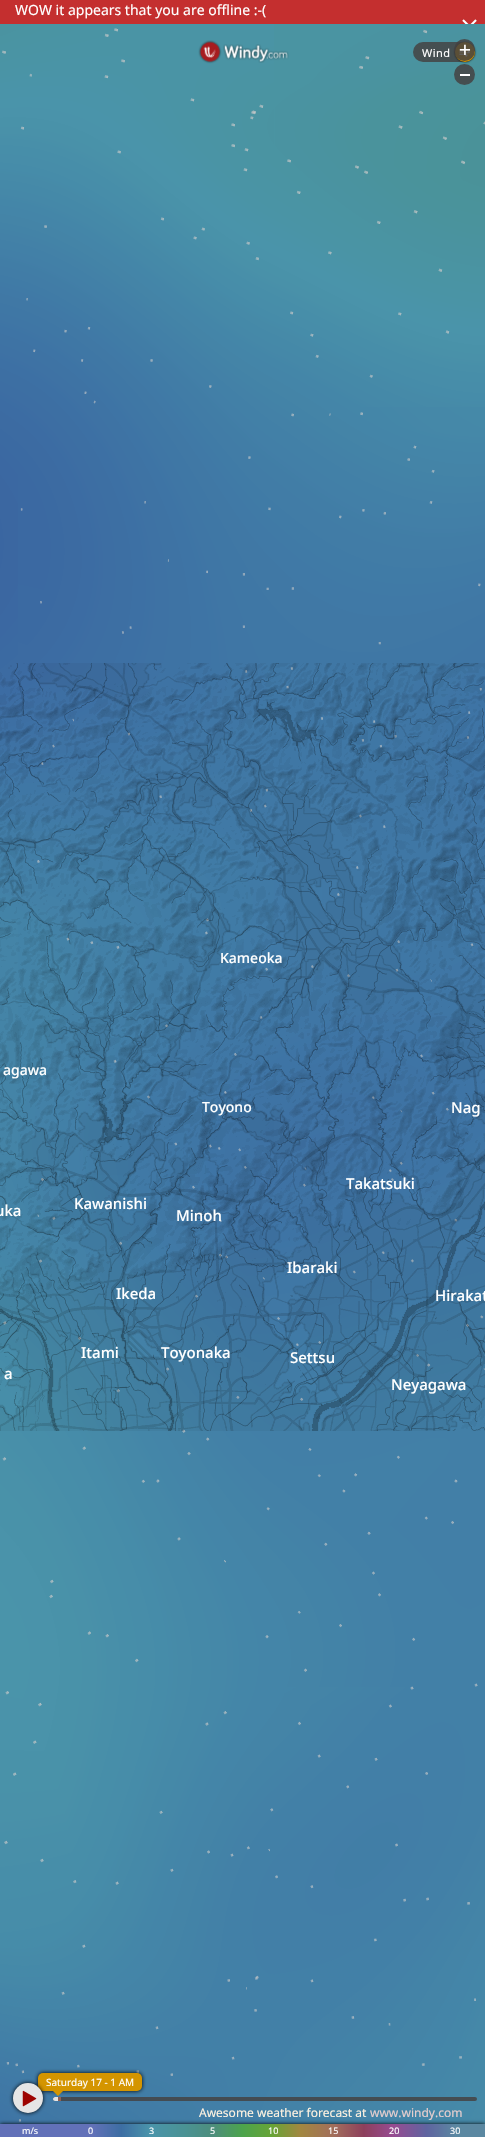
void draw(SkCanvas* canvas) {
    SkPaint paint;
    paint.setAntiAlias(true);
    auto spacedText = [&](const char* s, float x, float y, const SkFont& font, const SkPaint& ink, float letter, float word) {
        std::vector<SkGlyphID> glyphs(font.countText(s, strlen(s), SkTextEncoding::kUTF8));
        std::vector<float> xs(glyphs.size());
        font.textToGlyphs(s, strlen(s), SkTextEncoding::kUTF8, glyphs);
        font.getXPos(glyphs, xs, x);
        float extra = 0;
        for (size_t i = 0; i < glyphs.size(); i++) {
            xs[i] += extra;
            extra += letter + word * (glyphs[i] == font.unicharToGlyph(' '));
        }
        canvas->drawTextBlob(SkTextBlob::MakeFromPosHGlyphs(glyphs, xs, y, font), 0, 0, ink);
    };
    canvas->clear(0xFFFFFFFF);
    paint.setColor(0xFFC42F2F);
    canvas->drawRect(SkRect::MakeXYWH(0, 0, 485, 24), paint);
    SkFont font1(fontMgr->matchFamilyStyle("Noto Sans", SkFontStyle::Normal()), 14);
    font1.setSubpixel(true);
    paint.setColor(0xFFFFFFFF);
    canvas->drawString("WOW it appears that you are offline :-(", 15, 15, font1, paint);
    canvas->drawImageRect(SkImages::DeferredFromEncodedData(SkData::MakeFromFileName("img1.png")), SkRect::MakeXYWH(462, 19, 15, 5), SkSamplingOptions());
    canvas->drawImageRect(SkImages::DeferredFromEncodedData(SkData::MakeFromFileName("img7.png")), SkRect::MakeXYWH(18, 24, 256, 127), SkSamplingOptions());
    canvas->drawImageRect(SkImages::DeferredFromEncodedData(SkData::MakeFromFileName("img6.png")), SkRect::MakeXYWH(0, 24, 18, 127), SkSamplingOptions());
    canvas->drawImageRect(SkImages::DeferredFromEncodedData(SkData::MakeFromFileName("img8.png")), SkRect::MakeXYWH(274, 24, 211, 127), SkSamplingOptions());
    canvas->drawImageRect(SkImages::DeferredFromEncodedData(SkData::MakeFromFileName("img9.png")), SkRect::MakeXYWH(0, 151, 18, 256), SkSamplingOptions());
    canvas->drawImageRect(SkImages::DeferredFromEncodedData(SkData::MakeFromFileName("img10.png")), SkRect::MakeXYWH(18, 151, 256, 256), SkSamplingOptions());
    canvas->drawImageRect(SkImages::DeferredFromEncodedData(SkData::MakeFromFileName("img11.png")), SkRect::MakeXYWH(274, 151, 211, 256), SkSamplingOptions());
    canvas->drawImageRect(SkImages::DeferredFromEncodedData(SkData::MakeFromFileName("img12.png")), SkRect::MakeXYWH(0, 407, 18, 256), SkSamplingOptions());
    canvas->drawImageRect(SkImages::DeferredFromEncodedData(SkData::MakeFromFileName("img13.png")), SkRect::MakeXYWH(18, 407, 256, 256), SkSamplingOptions());
    canvas->drawImageRect(SkImages::DeferredFromEncodedData(SkData::MakeFromFileName("img14.png")), SkRect::MakeXYWH(274, 407, 211, 256), SkSamplingOptions());
    canvas->drawImageRect(SkImages::DeferredFromEncodedData(SkData::MakeFromFileName("img15.png")), SkRect::MakeXYWH(0, 663, 18, 256), SkSamplingOptions());
    canvas->drawImageRect(SkImages::DeferredFromEncodedData(SkData::MakeFromFileName("img16.png")), SkRect::MakeXYWH(18, 663, 256, 256), SkSamplingOptions());
    canvas->drawImageRect(SkImages::DeferredFromEncodedData(SkData::MakeFromFileName("img17.png")), SkRect::MakeXYWH(274, 663, 211, 256), SkSamplingOptions());
    paint.setColor(0xFF4484A7);
    canvas->drawRect(SkRect::MakeXYWH(0, 919, 18, 256), paint);
    canvas->drawImageRect(SkImages::DeferredFromEncodedData(SkData::MakeFromFileName("img18.png")), SkRect::MakeXYWH(18, 919, 256, 256), SkSamplingOptions());
    canvas->drawImageRect(SkImages::DeferredFromEncodedData(SkData::MakeFromFileName("img19.png")), SkRect::MakeXYWH(274, 919, 211, 256), SkSamplingOptions());
    canvas->drawImageRect(SkImages::DeferredFromEncodedData(SkData::MakeFromFileName("img20.png")), SkRect::MakeXYWH(0, 1175, 18, 256), SkSamplingOptions());
    canvas->drawImageRect(SkImages::DeferredFromEncodedData(SkData::MakeFromFileName("img21.png")), SkRect::MakeXYWH(18, 1175, 256, 256), SkSamplingOptions());
    canvas->drawImageRect(SkImages::DeferredFromEncodedData(SkData::MakeFromFileName("img22.png")), SkRect::MakeXYWH(274, 1175, 211, 256), SkSamplingOptions());
    canvas->drawImageRect(SkImages::DeferredFromEncodedData(SkData::MakeFromFileName("img23.png")), SkRect::MakeXYWH(0, 1431, 18, 256), SkSamplingOptions());
    canvas->drawImageRect(SkImages::DeferredFromEncodedData(SkData::MakeFromFileName("img24.png")), SkRect::MakeXYWH(18, 1431, 256, 256), SkSamplingOptions());
    canvas->drawImageRect(SkImages::DeferredFromEncodedData(SkData::MakeFromFileName("img25.png")), SkRect::MakeXYWH(274, 1431, 211, 256), SkSamplingOptions());
    canvas->drawImageRect(SkImages::DeferredFromEncodedData(SkData::MakeFromFileName("img26.png")), SkRect::MakeXYWH(0, 1687, 18, 256), SkSamplingOptions());
    canvas->drawImageRect(SkImages::DeferredFromEncodedData(SkData::MakeFromFileName("img27.png")), SkRect::MakeXYWH(18, 1687, 256, 256), SkSamplingOptions());
    canvas->drawImageRect(SkImages::DeferredFromEncodedData(SkData::MakeFromFileName("img28.png")), SkRect::MakeXYWH(274, 1687, 211, 256), SkSamplingOptions());
    canvas->drawImageRect(SkImages::DeferredFromEncodedData(SkData::MakeFromFileName("img29.png")), SkRect::MakeXYWH(0, 1943, 18, 181), SkSamplingOptions());
    canvas->drawImageRect(SkImages::DeferredFromEncodedData(SkData::MakeFromFileName("img30.png")), SkRect::MakeXYWH(18, 1943, 256, 181), SkSamplingOptions());
    canvas->drawImageRect(SkImages::DeferredFromEncodedData(SkData::MakeFromFileName("img31.png")), SkRect::MakeXYWH(274, 1943, 211, 181), SkSamplingOptions());
    canvas->drawImageRect(SkImages::DeferredFromEncodedData(SkData::MakeFromFileName("img32.png")), SkRect::MakeXYWH(2, 28, 483, 2094), SkSamplingOptions());
    canvas->drawImageRect(SkImages::DeferredFromEncodedData(SkData::MakeFromFileName("img2.png")), SkRect::MakeXYWH(198, 40, 24, 24), SkSamplingOptions());
    canvas->drawImageRect(SkImages::DeferredFromEncodedData(SkData::MakeFromFileName("img3.png")), SkRect::MakeXYWH(223, 44, 66, 19), SkSamplingOptions());
    paint.setColor(0xD6444141);
    canvas->drawRoundRect(SkRect::MakeXYWH(413, 42, 62, 20), 10, 10, paint);
    SkFont font2(fontMgr->matchFamilyStyle("Noto Sans", SkFontStyle::Normal()), 11);
    font2.setSubpixel(true);
    paint.setColor(0xFFFFFFFF);
    spacedText("Wind", 422, 57, font2, paint, 0.5f, 0);
    paint.setColor(0xFF000000);
    paint.setMaskFilter(SkMaskFilter::MakeBlur(kNormal_SkBlurStyle, 1));
    canvas->drawRoundRect(SkRect::MakeXYWH(455, 42, 20, 20), 10, 10, paint);
    paint.setMaskFilter(nullptr);
    paint.setColor(0xFFD49500);
    canvas->drawCircle(465, 52, 10, paint);
    canvas->drawImageRect(SkImages::DeferredFromEncodedData(SkData::MakeFromFileName("img4.png")), SkRect::MakeXYWH(459, 50, 11, 7), SkSamplingOptions());
    paint.setColor(0xD6444141);
    canvas->drawRoundRect(SkRect::MakeXYWH(454, 39, 21, 22), 10.5f, 10.5f, paint);
    canvas->drawImageRect(SkImages::DeferredFromEncodedData(SkData::MakeFromFileName("img5.png")), SkRect::MakeXYWH(459, 44, 12, 11), SkSamplingOptions());
    paint.setColor(0xFF454E50);
    canvas->drawCircle(464.5f, 74.5f, 10.5f, paint);
    paint.setColor(0xFFFFFFFF);
    canvas->drawRect(SkRect::MakeXYWH(460, 74, 10, 2), paint);
    canvas->drawImageRect(SkImages::DeferredFromEncodedData(SkData::MakeFromFileName("img33.png")), SkRect::MakeXYWH(0, 663, 18, 256), SkSamplingOptions());
    canvas->drawImageRect(SkImages::DeferredFromEncodedData(SkData::MakeFromFileName("img34.png")), SkRect::MakeXYWH(18, 663, 256, 256), SkSamplingOptions());
    canvas->drawImageRect(SkImages::DeferredFromEncodedData(SkData::MakeFromFileName("img35.png")), SkRect::MakeXYWH(274, 663, 211, 256), SkSamplingOptions());
    canvas->drawImageRect(SkImages::DeferredFromEncodedData(SkData::MakeFromFileName("img36.png")), SkRect::MakeXYWH(0, 919, 18, 256), SkSamplingOptions());
    canvas->drawImageRect(SkImages::DeferredFromEncodedData(SkData::MakeFromFileName("img37.png")), SkRect::MakeXYWH(18, 919, 256, 256), SkSamplingOptions());
    canvas->drawImageRect(SkImages::DeferredFromEncodedData(SkData::MakeFromFileName("img38.png")), SkRect::MakeXYWH(274, 919, 211, 256), SkSamplingOptions());
    canvas->drawImageRect(SkImages::DeferredFromEncodedData(SkData::MakeFromFileName("img39.png")), SkRect::MakeXYWH(0, 1175, 18, 256), SkSamplingOptions());
    canvas->drawImageRect(SkImages::DeferredFromEncodedData(SkData::MakeFromFileName("img40.png")), SkRect::MakeXYWH(18, 1175, 256, 256), SkSamplingOptions());
    canvas->drawImageRect(SkImages::DeferredFromEncodedData(SkData::MakeFromFileName("img41.png")), SkRect::MakeXYWH(274, 1175, 211, 256), SkSamplingOptions());
    SkFont font3(fontMgr->matchFamilyStyle("Noto Sans", SkFontStyle(500, SkFontStyle::kNormal_Width, SkFontStyle::kUpright_Slant)), 14);
    font3.setSubpixel(true);
    canvas->drawString("Kameoka", 220, 963, font3, paint);
    canvas->drawString("agawa", 3, 1075, font3, paint);
    canvas->drawString("Toyono", 202, 1112, font3, paint);
    SkFont font4(fontMgr->matchFamilyStyle("Noto Sans", SkFontStyle(500, SkFontStyle::kNormal_Width, SkFontStyle::kUpright_Slant)), 15);
    font4.setSubpixel(true);
    canvas->drawString("Nag", 451, 1113, font4, paint);
    canvas->drawString("uka", -5, 1216, font4, paint);
    canvas->drawString("a", 4, 1379, font4, paint);
    canvas->drawString("Kawanishi", 74, 1209, font4, paint);
    canvas->drawString("Minoh", 176, 1221, font4, paint);
    canvas->drawString("Ikeda", 116, 1299, font4, paint);
    canvas->drawString("Itami", 81, 1358, font4, paint);
    canvas->drawString("Toyonaka", 161, 1358, font4, paint);
    canvas->drawString("Takatsuki", 346, 1189, font4, paint);
    canvas->drawString("Ibaraki", 287, 1273, font4, paint);
    canvas->drawString("Hirakat", 435, 1301, font4, paint);
    canvas->drawString("Settsu", 290, 1363, font4, paint);
    canvas->drawString("Neyagawa", 391, 1390, font4, paint);
    paint.setColor(0xFF000000);
    paint.setMaskFilter(SkMaskFilter::MakeBlur(kNormal_SkBlurStyle, 2));
    canvas->drawRoundRect(SkRect::MakeXYWH(38, 2073, 104, 18), 5, 5, paint);
    paint.setMaskFilter(nullptr);
    paint.setColor(0xFFD49500);
    canvas->drawRoundRect(SkRect::MakeXYWH(38, 2073, 104, 18), 5, 5, paint);
    paint.setColor(0xFF000000);
    paint.setMaskFilter(SkMaskFilter::MakeBlur(kNormal_SkBlurStyle, 2));
    canvas->drawRoundRect(SkRect::MakeXYWH(13, 2083, 30, 30), 15, 15, paint);
    paint.setMaskFilter(nullptr);
    paint.setColor(0xFFE5E5E5);
    canvas->drawCircle(28, 2098, 15, paint);
    canvas->drawImageRect(SkImages::DeferredFromEncodedData(SkData::MakeFromFileName("img42.png")), SkRect::MakeXYWH(22, 2090, 15, 17), SkSamplingOptions());
    SkFont font5(fontMgr->matchFamilyStyle("Noto Sans", SkFontStyle::Normal()), 10);
    font5.setSubpixel(true);
    paint.setColor(0xFFFFFFFF);
    canvas->drawString("Saturday 17 - 1 AM", 46, 2086, font5, paint);
    paint.setColor(0xFFD49500);
    canvas->drawPath(SkPathBuilder().moveTo(53, 2091).lineTo(63, 2091).lineTo(58, 2096).close().detach(), paint);
    paint.setColor(0xD6444141);
    canvas->drawRoundRect(SkRect::MakeXYWH(53, 2097, 424, 4), 2, 2, paint);
    paint.setColor(0xFFE5E5E5);
    canvas->drawPath(SkPathBuilder().moveTo(55, 2097).lineTo(58, 2097).lineTo(58, 2101).lineTo(55, 2101).cubicTo(54, 2101, 53, 2100, 53, 2099).cubicTo(53, 2098, 54, 2097, 55, 2097).close().detach(), paint);
    paint.setColor(0xFF946051);
    canvas->drawRect(SkRect::MakeXYWH(58, 2097, 3, 4), paint);
    paint.setColor(0xFF000000);
    paint.setMaskFilter(SkMaskFilter::MakeBlur(kNormal_SkBlurStyle, 2));
    canvas->drawRect(SkRect::MakeXYWH(0, 2124, 485, 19), paint);
    paint.setMaskFilter(nullptr);
    SkFont font6(fontMgr->matchFamilyStyle("Noto Sans", SkFontStyle::Normal()), 12);
    font6.setSubpixel(true);
    paint.setColor(0xFFFFF3E1);
    canvas->drawString("Awesome weather forecast at", 199, 2117, font6, paint);
    paint.setColor(0xFFE6CECE);
    canvas->drawString("www.windy.com", 370, 2117, font6, paint);
    {
        const SkColor colors[] = {0xFF6271B8, 0xFF6271B8, 0xFF3D6EA3, 0xFF4A94AA, 0xFF4A9294, 0xFF4D8E7C, 0xFF4CA44C, 0xFF67A436, 0xFFA28740, 0xFFA26D5C, 0xFF8D3F5C, 0xFF974B91, 0xFF5F64A0, 0xFF5B88A1, 0xFF5B88A1};
        const float stops[] = {0, 0.19f, 0.25f, 0.31f, 0.38f, 0.44f, 0.5f, 0.56f, 0.62f, 0.69f, 0.75f, 0.81f, 0.88f, 0.94f, 1};
        const SkPoint ends[] = {{0, 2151}, {485, 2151}};
        paint.setShader(SkGradientShader::MakeLinear(ends, colors, stops, 15, SkTileMode::kClamp));
        paint.setAlpha(255);
    }
    canvas->drawRect(SkRect::MakeXYWH(0, 2124, 485, 13), paint);
    SkFont font7(fontMgr->matchFamilyStyle("Noto Sans", SkFontStyle::Normal()), 9);
    font7.setSubpixel(true);
    paint.setShader(nullptr);
    paint.setColor(0xFFFFFFFF);
    canvas->drawString("m/s", 22, 2134, font7, paint);
    canvas->drawString("0", 88, 2134, font7, paint);
    canvas->drawString("3", 149, 2134, font7, paint);
    canvas->drawString("5", 210, 2134, font7, paint);
    canvas->drawString("10", 268, 2134, font7, paint);
    canvas->drawString("15", 328, 2134, font7, paint);
    canvas->drawString("20", 389, 2134, font7, paint);
    canvas->drawString("30", 450, 2134, font7, paint);
}
